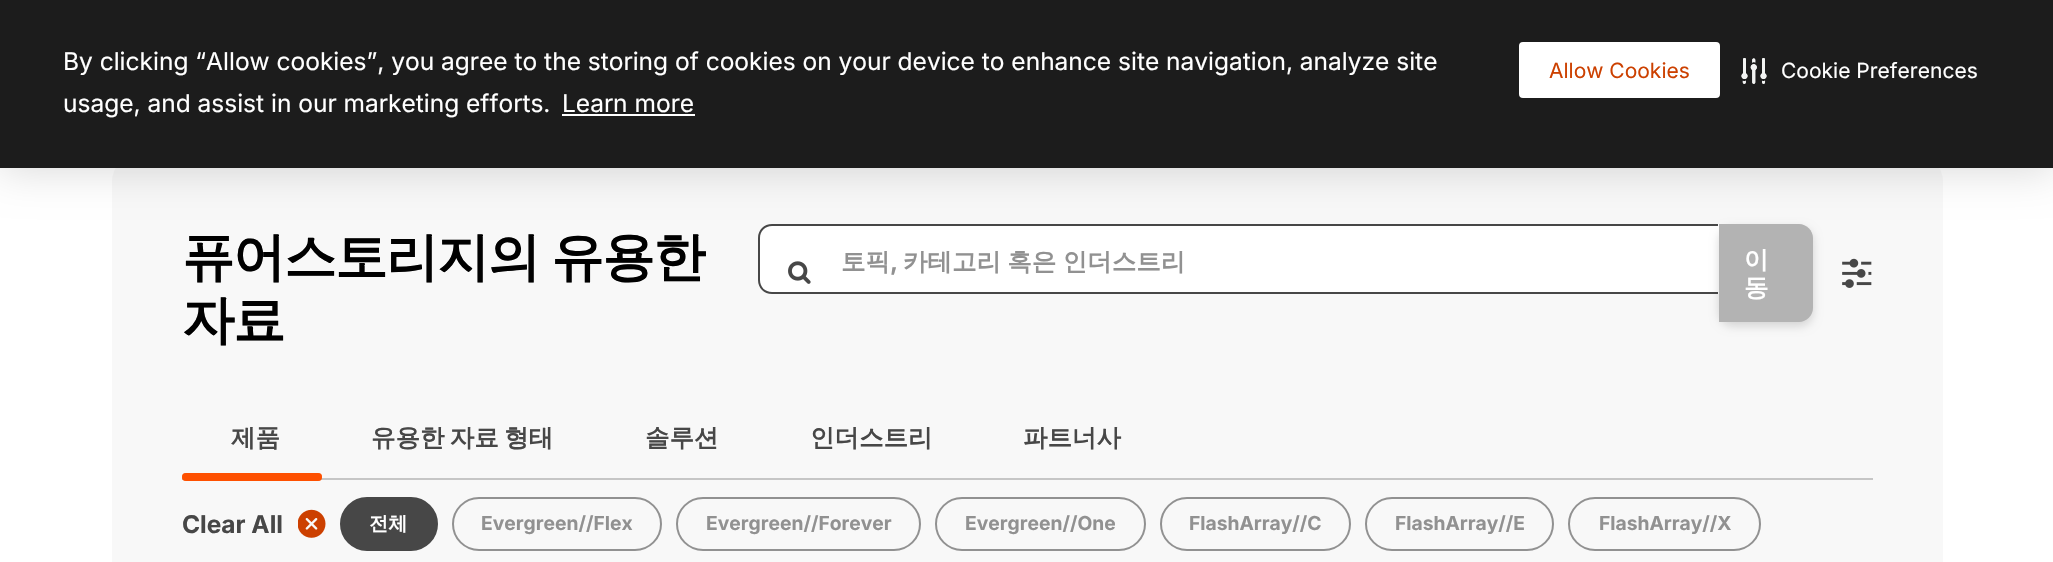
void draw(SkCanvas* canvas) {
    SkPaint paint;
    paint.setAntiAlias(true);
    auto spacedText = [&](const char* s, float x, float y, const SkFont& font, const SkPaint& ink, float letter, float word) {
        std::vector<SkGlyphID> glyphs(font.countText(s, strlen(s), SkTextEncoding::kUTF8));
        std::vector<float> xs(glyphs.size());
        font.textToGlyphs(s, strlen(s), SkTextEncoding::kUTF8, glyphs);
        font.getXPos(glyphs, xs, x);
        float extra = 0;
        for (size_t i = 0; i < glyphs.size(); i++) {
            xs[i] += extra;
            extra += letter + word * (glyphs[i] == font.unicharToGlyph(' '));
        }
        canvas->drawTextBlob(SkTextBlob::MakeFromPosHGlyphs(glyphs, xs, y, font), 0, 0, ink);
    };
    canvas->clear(0xFFFFFFFF);
    paint.setColor(0xFFF8F8F8);
    canvas->drawRoundRect(SkRect::MakeXYWH(112, 154, 1831, 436), 28, 28, paint);
    paint.setColor(0xFFFFFFFF);
    canvas->drawPath(SkPathBuilder().moveTo(772, 224).lineTo(1719, 224).lineTo(1719, 294).lineTo(772, 294).cubicTo(764.5f, 294, 758, 287.5f, 758, 280).lineTo(758, 238).cubicTo(758, 230.5f, 764.5f, 224, 772, 224).close().detach(), paint);
    paint.setColor(0xFF474747);
    canvas->drawPath(SkPathBuilder(SkPathFillType::kEvenOdd).moveTo(772, 224).lineTo(1718, 224).lineTo(1718, 294).lineTo(772, 294).cubicTo(764, 294, 758, 288, 758, 280).lineTo(758, 238).cubicTo(758, 230, 764, 224, 772, 224).close().moveTo(772, 226).lineTo(1718, 226).lineTo(1718, 292).lineTo(772, 292).cubicTo(765, 292, 760, 287, 760, 280).lineTo(760, 238).cubicTo(760, 231, 765, 226, 772, 226).close().detach(), paint);
    paint.setColor(0x26000000);
    paint.setMaskFilter(SkMaskFilter::MakeBlur(kNormal_SkBlurStyle, 5));
    canvas->drawRoundRect(SkRect::MakeXYWH(1719, 228, 94, 98), 14, 14, paint);
    paint.setMaskFilter(nullptr);
    paint.setColor(0xFFB3B3B3);
    canvas->drawPath(SkPathBuilder().moveTo(1719, 224).lineTo(1799, 224).cubicTo(1806.5f, 224, 1813, 230.5f, 1813, 238).lineTo(1813, 308).cubicTo(1813, 315.5f, 1806.5f, 322, 1799, 322).lineTo(1719, 322).close().detach(), paint);
    paint.setColor(0x26000000);
    paint.setMaskFilter(SkMaskFilter::MakeBlur(kNormal_SkBlurStyle, 21));
    canvas->drawRect(SkRect::MakeXYWH(0, 86, 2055, 84), paint);
    paint.setMaskFilter(nullptr);
    paint.setColor(0xFF1C1C1C);
    canvas->drawRect(SkRect::MakeXYWH(0, 0, 2053, 168), paint);
    SkFont font1(fontMgr->matchFamilyStyle("Inter", SkFontStyle::Normal()), 24.5f);
    font1.setSubpixel(true);
    paint.setColor(0xFFFFFFFF);
    canvas->drawString("By clicking “Allow cookies”, you agree to the storing of cookies on your device to enhance site navigation, analyze site", 63, 70, font1, paint);
    canvas->drawString("usage, and assist in our marketing efforts.", 63, 112, font1, paint);
    canvas->drawString("Learn more", 562, 112, font1, paint);
    canvas->drawRect(SkRect::MakeXYWH(562, 114, 133, 2), paint);
    canvas->drawRoundRect(SkRect::MakeXYWH(1520, 43, 199, 54), 3, 3, paint);
    paint.setStyle(SkPaint::kStroke_Style);
    paint.setStrokeWidth(2);
    canvas->drawRoundRect(SkRect::MakeXYWH(1520, 43, 199, 54), 3, 3, paint);
    SkFont font2(fontMgr->matchFamilyStyle("Inter", SkFontStyle::Normal()), 21);
    font2.setSubpixel(true);
    paint.setStyle(SkPaint::kFill_Style);
    paint.setColor(0xFFCC4000);
    canvas->drawString("Allow Cookies", 1549, 78, font2, paint);
    canvas->drawImageRect(SkImages::DeferredFromEncodedData(SkData::MakeFromFileName("img1.png")), SkRect::MakeXYWH(1741, 58, 26, 26), SkSamplingOptions());
    paint.setColor(0xFFFFFFFF);
    canvas->drawString("Cookie Preferences", 1781, 78, font2, paint);
    SkFont font3(fontMgr->matchFamilyStyle("WenQuanYi Zen Hei", SkFontStyle::Bold()), 52.5f);
    font3.setSubpixel(true);
    paint.setColor(0xFF000000);
    spacedText("퓨어스토리지의 유용한", 182, 275, font3, paint, -1.5f, -2);
    spacedText("자료", 182, 338, font3, paint, -1.5f, 0);
    canvas->drawImageRect(SkImages::DeferredFromEncodedData(SkData::MakeFromFileName("img2.png")), SkRect::MakeXYWH(788, 261, 23, 23), SkSamplingOptions());
    SkFont font4(fontMgr->matchFamilyStyle("WenQuanYi Zen Hei", SkFontStyle::Bold()), 24.5f);
    font4.setSubpixel(true);
    paint.setColor(0xFF919191);
    canvas->drawString("토픽", 841, 270, font4, paint);
    SkFont font5(fontMgr->matchFamilyStyle("Inter", SkFontStyle::Bold()), 24.5f);
    font5.setSubpixel(true);
    canvas->drawString(",", 890, 270, font5, paint);
    spacedText("카테고리 혹은 인더스트리", 903, 270, font4, paint, 0, -1);
    paint.setColor(0xFFFFFFFF);
    canvas->drawString("이", 1744, 268, font4, paint);
    canvas->drawString("동", 1744, 296, font4, paint);
    canvas->drawImageRect(SkImages::DeferredFromEncodedData(SkData::MakeFromFileName("img3.png")), SkRect::MakeXYWH(1842, 258, 30, 30), SkSamplingOptions());
    paint.setColor(0xFF474747);
    canvas->drawString("제품", 231, 446, font4, paint);
    spacedText("유용한 자료 형태", 371, 446, font4, paint, 0, -2);
    canvas->drawString("솔루션", 645, 446, font4, paint);
    canvas->drawString("인더스트리", 810, 446, font4, paint);
    canvas->drawString("파트너사", 1023, 446, font4, paint);
    paint.setColor(0xFFC6C6C6);
    canvas->drawRect(SkRect::MakeXYWH(182, 478, 1691, 2), paint);
    paint.setColor(0xFFFE5000);
    canvas->drawRoundRect(SkRect::MakeXYWH(182, 473, 140, 8), 4, 4, paint);
    paint.setColor(0x66FE5000);
    canvas->drawRoundRect(SkRect::MakeXYWH(182, 473, 140, 8), 4, 4, paint);
    paint.setColor(0x33FE5000);
    canvas->drawRoundRect(SkRect::MakeXYWH(182, 473, 140, 8), 4, 4, paint);
    paint.setColor(0xFF474747);
    canvas->drawString("Clear All", 182, 533, font5, paint);
    canvas->drawImageRect(SkImages::DeferredFromEncodedData(SkData::MakeFromFileName("img4.png")), SkRect::MakeXYWH(298, 509, 28, 29), SkSamplingOptions());
    canvas->drawRoundRect(SkRect::MakeXYWH(341, 498, 96, 52), 26, 26, paint);
    paint.setStyle(SkPaint::kStroke_Style);
    canvas->drawRoundRect(SkRect::MakeXYWH(341, 498, 96, 52), 26, 26, paint);
    SkFont font6(fontMgr->matchFamilyStyle("WenQuanYi Zen Hei", SkFontStyle::Bold()), 19.25f);
    font6.setSubpixel(true);
    paint.setStyle(SkPaint::kFill_Style);
    paint.setColor(0xFFFFFFFF);
    canvas->drawString("전체", 369, 530, font6, paint);
    paint.setStyle(SkPaint::kStroke_Style);
    paint.setColor(0xFF919191);
    canvas->drawRoundRect(SkRect::MakeXYWH(453, 498, 208, 52), 26, 26, paint);
    SkFont font7(fontMgr->matchFamilyStyle("Inter", SkFontStyle::Bold()), 19.25f);
    font7.setSubpixel(true);
    paint.setStyle(SkPaint::kFill_Style);
    canvas->drawString("Evergreen//Flex", 481, 530, font7, paint);
    paint.setStyle(SkPaint::kStroke_Style);
    canvas->drawRoundRect(SkRect::MakeXYWH(677, 498, 243, 52), 26, 26, paint);
    paint.setStyle(SkPaint::kFill_Style);
    canvas->drawString("Evergreen//Forever", 706, 530, font7, paint);
    paint.setStyle(SkPaint::kStroke_Style);
    canvas->drawRoundRect(SkRect::MakeXYWH(936, 498, 209, 52), 26, 26, paint);
    paint.setStyle(SkPaint::kFill_Style);
    canvas->drawString("Evergreen//One", 965, 530, font7, paint);
    paint.setStyle(SkPaint::kStroke_Style);
    canvas->drawRoundRect(SkRect::MakeXYWH(1161, 498, 189, 52), 26, 26, paint);
    paint.setStyle(SkPaint::kFill_Style);
    canvas->drawString("FlashArray//C", 1189, 530, font7, paint);
    paint.setStyle(SkPaint::kStroke_Style);
    canvas->drawRoundRect(SkRect::MakeXYWH(1366, 498, 187, 52), 26, 26, paint);
    paint.setStyle(SkPaint::kFill_Style);
    canvas->drawString("FlashArray//E", 1395, 530, font7, paint);
    paint.setStyle(SkPaint::kStroke_Style);
    canvas->drawRoundRect(SkRect::MakeXYWH(1569, 498, 191, 52), 26, 26, paint);
    paint.setStyle(SkPaint::kFill_Style);
    canvas->drawString("FlashArray//X", 1599, 530, font7, paint);
}
